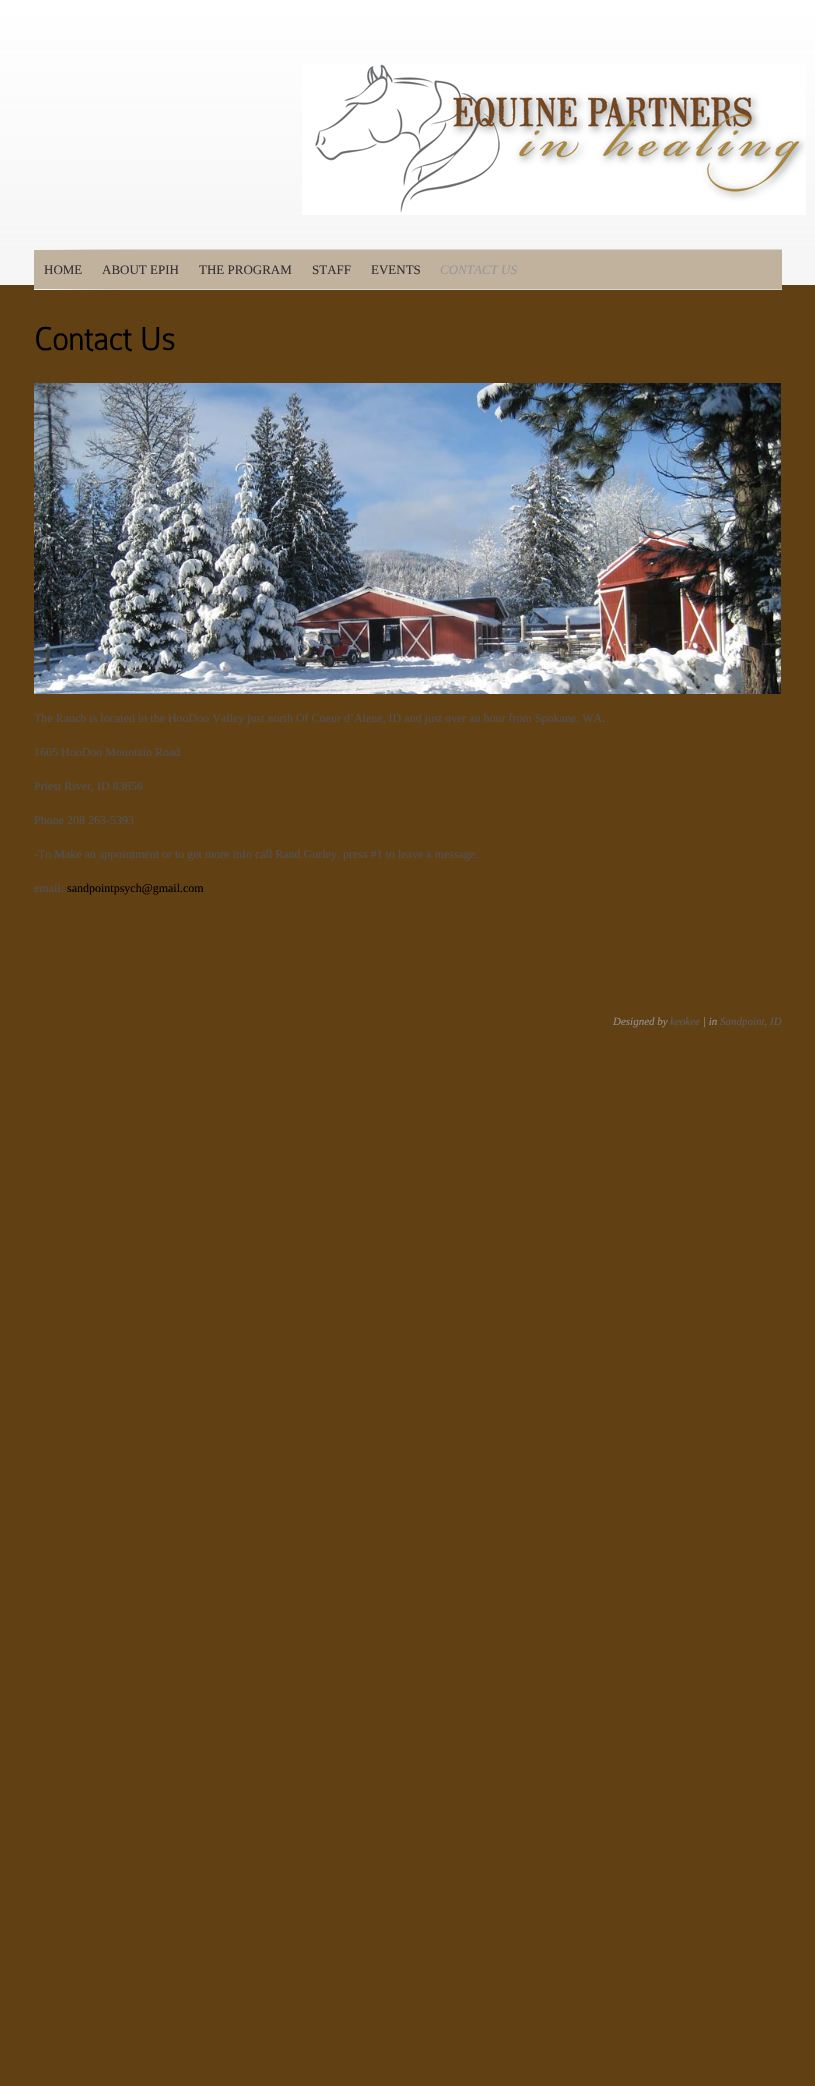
void draw(SkCanvas* canvas) {
    SkPaint paint;
    paint.setAntiAlias(true);
    canvas->clear(0xFF614014);
    canvas->drawImageRect(SkImages::DeferredFromEncodedData(SkData::MakeFromFileName("img1.png")), SkRect::MakeXYWH(0, 0, 815, 285), SkSamplingOptions());
    canvas->drawImageRect(SkImages::DeferredFromEncodedData(SkData::MakeFromFileName("img2.png")), SkRect::MakeXYWH(302, 64, 504, 151), SkSamplingOptions());
    paint.setColor(0xFFC1B29D);
    canvas->drawRect(SkRect::MakeXYWH(34, 250, 748, 39), paint);
    canvas->drawImageRect(SkImages::DeferredFromEncodedData(SkData::MakeFromFileName("img3.png")), SkRect::MakeXYWH(34, 249, 748, 1), SkSamplingOptions());
    SkFont font1(fontMgr->matchFamilyStyle("Liberation Serif", SkFontStyle::Normal()), 13);
    font1.setSubpixel(true);
    paint.setColor(0xFF333333);
    canvas->drawString("HOME", 44, 274, font1, paint);
    canvas->drawString("ABOUT EPIH", 102, 274, font1, paint);
    canvas->drawString("THE PROGRAM", 199, 274, font1, paint);
    canvas->drawString("STAFF", 312, 274, font1, paint);
    canvas->drawString("EVENTS", 371, 274, font1, paint);
    SkFont font2(fontMgr->matchFamilyStyle("Liberation Serif", SkFontStyle::Italic()), 13);
    font2.setSubpixel(true);
    paint.setColor(0xFF989898);
    canvas->drawString("CONTACT US", 440, 274, font2, paint);
    canvas->drawImageRect(SkImages::DeferredFromEncodedData(SkData::MakeFromFileName("img4.png")), SkRect::MakeXYWH(34, 289, 748, 1), SkSamplingOptions());
    SkFont font3(fontMgr->matchFamilyStyle("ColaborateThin", SkFontStyle::Bold()), 34);
    font3.setSubpixel(true);
    paint.setColor(0xFF000000);
    canvas->drawString("Contact Us", 34, 350, font3, paint);
    canvas->drawImageRect(SkImages::DeferredFromEncodedData(SkData::MakeFromFileName("img5.png")), SkRect::MakeXYWH(34, 383, 747, 311), SkSamplingOptions());
    SkFont font4(fontMgr->matchFamilyStyle("Liberation Serif", SkFontStyle::Normal()), 12);
    font4.setSubpixel(true);
    paint.setColor(0xFF525252);
    canvas->drawString("The Ranch is located in the HooDoo Valley just north Of Coeur d’Alene, ID and just over an hour from Spokane, WA.", 34, 722, font4, paint);
    canvas->drawString("1605 HooDoo Mountain Road", 34, 756, font4, paint);
    canvas->drawString("Priest River, ID 83856", 34, 790, font4, paint);
    canvas->drawString("Phone 208 263-5393", 34, 824, font4, paint);
    canvas->drawString("-To Make an appointment or to get more info call Rand Gurley, press #1 to leave a message.", 34, 858, font4, paint);
    canvas->drawString("email:", 34, 892, font4, paint);
    paint.setColor(0xFF000000);
    canvas->drawString("sandpointpsych@gmail.com", 67, 892, font4, paint);
    SkFont font5(fontMgr->matchFamilyStyle("Liberation Serif", SkFontStyle::Italic()), 11);
    font5.setSubpixel(true);
    paint.setColor(0xFF919191);
    canvas->drawString("Designed by", 613, 1025, font5, paint);
    paint.setColor(0xFF5E5B5B);
    canvas->drawString("keokee", 670, 1025, font5, paint);
    paint.setColor(0xFF919191);
    canvas->drawString("| in", 703, 1025, font5, paint);
    paint.setColor(0xFF5E5B5B);
    canvas->drawString("Sandpoint, ID", 720, 1025, font5, paint);
}
